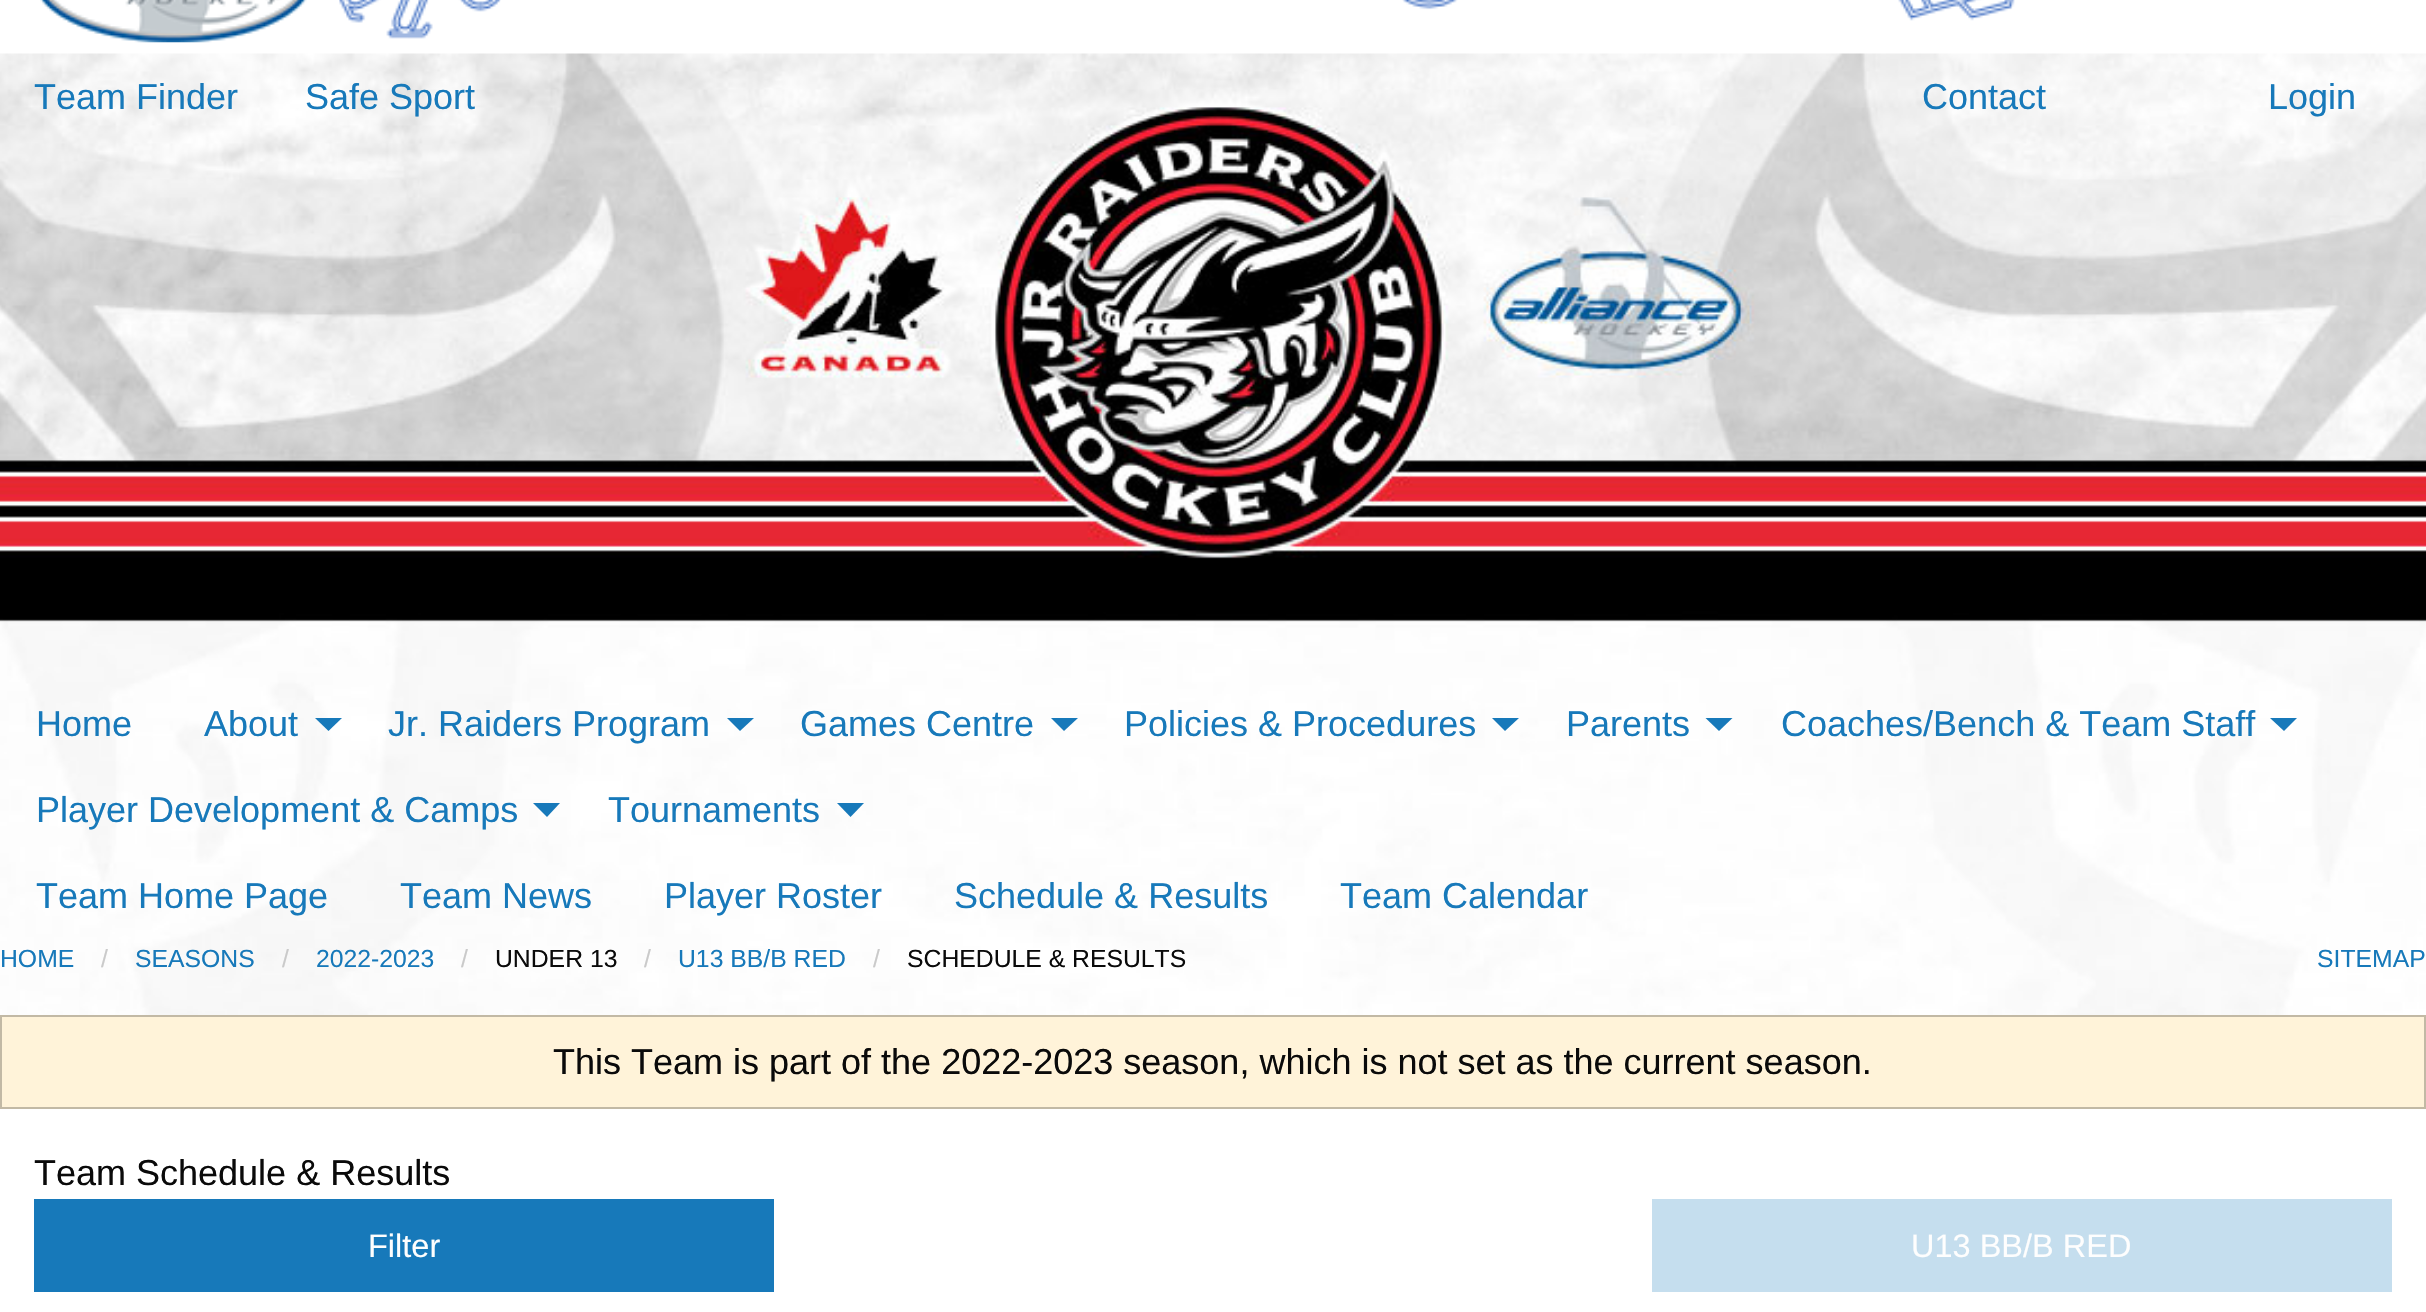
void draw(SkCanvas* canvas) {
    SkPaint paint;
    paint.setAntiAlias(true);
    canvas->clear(0xFFFFFFFF);
    canvas->drawImageRect(SkImages::DeferredFromEncodedData(SkData::MakeFromFileName("img1.png")), SkRect::MakeXYWH(40, 0, 267, 43), SkSamplingOptions());
    canvas->drawImageRect(SkImages::DeferredFromEncodedData(SkData::MakeFromFileName("img2.png")), SkRect::MakeXYWH(339, 0, 162, 39), SkSamplingOptions());
    canvas->drawImageRect(SkImages::DeferredFromEncodedData(SkData::MakeFromFileName("img3.png")), SkRect::MakeXYWH(1402, 0, 56, 10), SkSamplingOptions());
    canvas->drawImageRect(SkImages::DeferredFromEncodedData(SkData::MakeFromFileName("img4.png")), SkRect::MakeXYWH(1898, 0, 117, 21), SkSamplingOptions());
    canvas->drawImageRect(SkImages::DeferredFromEncodedData(SkData::MakeFromFileName("img5.png")), SkRect::MakeXYWH(0, 53, 2426, 962), SkSamplingOptions());
    SkFont font1(fontMgr->matchFamilyStyle("Liberation Sans", SkFontStyle::Normal()), 36);
    font1.setSubpixel(true);
    paint.setColor(0xFF1779BA);
    canvas->drawString("Team Finder", 34, 109, font1, paint);
    canvas->drawString("Safe Sport", 305, 109, font1, paint);
    canvas->drawString("Contact", 1922, 109, font1, paint);
    canvas->drawString("Login", 2268, 109, font1, paint);
    canvas->drawString("Home", 36, 736, font1, paint);
    canvas->drawString("About", 204, 736, font1, paint);
    canvas->drawPath(SkPathBuilder().moveTo(315, 718).lineTo(342, 718).lineTo(328.5f, 731).close().detach(), paint);
    canvas->drawString("Jr. Raiders Program", 388, 736, font1, paint);
    canvas->drawPath(SkPathBuilder().moveTo(727, 718).lineTo(754, 718).lineTo(740, 731).close().detach(), paint);
    canvas->drawString("Games Centre", 800, 736, font1, paint);
    canvas->drawPath(SkPathBuilder().moveTo(1051, 718).lineTo(1078, 718).lineTo(1064, 731).close().detach(), paint);
    canvas->drawString("Policies & Procedures", 1124, 736, font1, paint);
    canvas->drawPath(SkPathBuilder().moveTo(1492, 718).lineTo(1519, 718).lineTo(1505, 731).close().detach(), paint);
    canvas->drawString("Parents", 1566, 736, font1, paint);
    canvas->drawPath(SkPathBuilder().moveTo(1705.5f, 718).lineTo(1732.5f, 718).lineTo(1719, 731).close().detach(), paint);
    canvas->drawString("Coaches/Bench & Team Staff", 1781, 736, font1, paint);
    canvas->drawPath(SkPathBuilder().moveTo(2270, 718).lineTo(2297, 718).lineTo(2284, 731).close().detach(), paint);
    canvas->drawString("Player Development & Camps", 36, 822, font1, paint);
    canvas->drawPath(SkPathBuilder().moveTo(533, 803).lineTo(560, 803).lineTo(547, 817).close().detach(), paint);
    canvas->drawString("Tournaments", 608, 822, font1, paint);
    canvas->drawPath(SkPathBuilder().moveTo(837, 803).lineTo(864, 803).lineTo(850.5f, 817).close().detach(), paint);
    canvas->drawString("Team Home Page", 36, 908, font1, paint);
    canvas->drawString("Team News", 400, 908, font1, paint);
    canvas->drawString("Player Roster", 664, 908, font1, paint);
    canvas->drawString("Schedule & Results", 954, 908, font1, paint);
    canvas->drawString("Team Calendar", 1340, 908, font1, paint);
    SkFont font2(fontMgr->matchFamilyStyle("Liberation Sans", SkFontStyle::Normal()), 24.75f);
    font2.setSubpixel(true);
    canvas->drawString("HOME", 0, 967, font2, paint);
    paint.setColor(0xFFCACACA);
    canvas->drawString("/", 101, 967, font2, paint);
    paint.setColor(0xFF1779BA);
    canvas->drawString("SEASONS", 135, 967, font2, paint);
    paint.setColor(0xFFCACACA);
    canvas->drawString("/", 282, 967, font2, paint);
    paint.setColor(0xFF1779BA);
    canvas->drawString("2022-2023", 316, 967, font2, paint);
    paint.setColor(0xFFCACACA);
    canvas->drawString("/", 461, 967, font2, paint);
    paint.setColor(0xFF0A0A0A);
    canvas->drawString("UNDER 13", 495, 967, font2, paint);
    paint.setColor(0xFFCACACA);
    canvas->drawString("/", 644, 967, font2, paint);
    paint.setColor(0xFF1779BA);
    canvas->drawString("U13 BB/B RED", 678, 967, font2, paint);
    paint.setColor(0xFFCACACA);
    canvas->drawString("/", 873, 967, font2, paint);
    paint.setColor(0xFF0A0A0A);
    canvas->drawString("SCHEDULE & RESULTS", 907, 967, font2, paint);
    paint.setColor(0xFF1779BA);
    canvas->drawString("SITEMAP", 2317, 967, font2, paint);
    paint.setColor(0xFFFFF3D9);
    canvas->drawRect(SkRect::MakeXYWH(1, 1016, 2424, 92), paint);
    paint.setStyle(SkPaint::kStroke_Style);
    paint.setStrokeWidth(2);
    paint.setColor(0xFFC2B9A5);
    canvas->drawRect(SkRect::MakeXYWH(1, 1016, 2424, 92), paint);
    paint.setStyle(SkPaint::kFill_Style);
    paint.setColor(0xFF0A0A0A);
    canvas->drawString("This Team is part of the 2022-2023 season, which is not set as the current season.", 553, 1074, font1, paint);
    canvas->drawString("Team Schedule & Results", 34, 1185, font1, paint);
    paint.setColor(0xFF1779BA);
    canvas->drawRect(SkRect::MakeXYWH(34, 1199, 740, 93), paint);
    SkFont font3(fontMgr->matchFamilyStyle("Liberation Sans", SkFontStyle::Normal()), 32.5f);
    font3.setSubpixel(true);
    paint.setColor(0xFFFEFEFE);
    canvas->drawString("Filter", 368, 1257, font3, paint);
    paint.setColor(0xFFC5DEEE);
    canvas->drawRect(SkRect::MakeXYWH(1652, 1199, 740, 93), paint);
    paint.setColor(0xFFFEFEFE);
    canvas->drawString("U13 BB/B RED", 1911, 1257, font3, paint);
}
